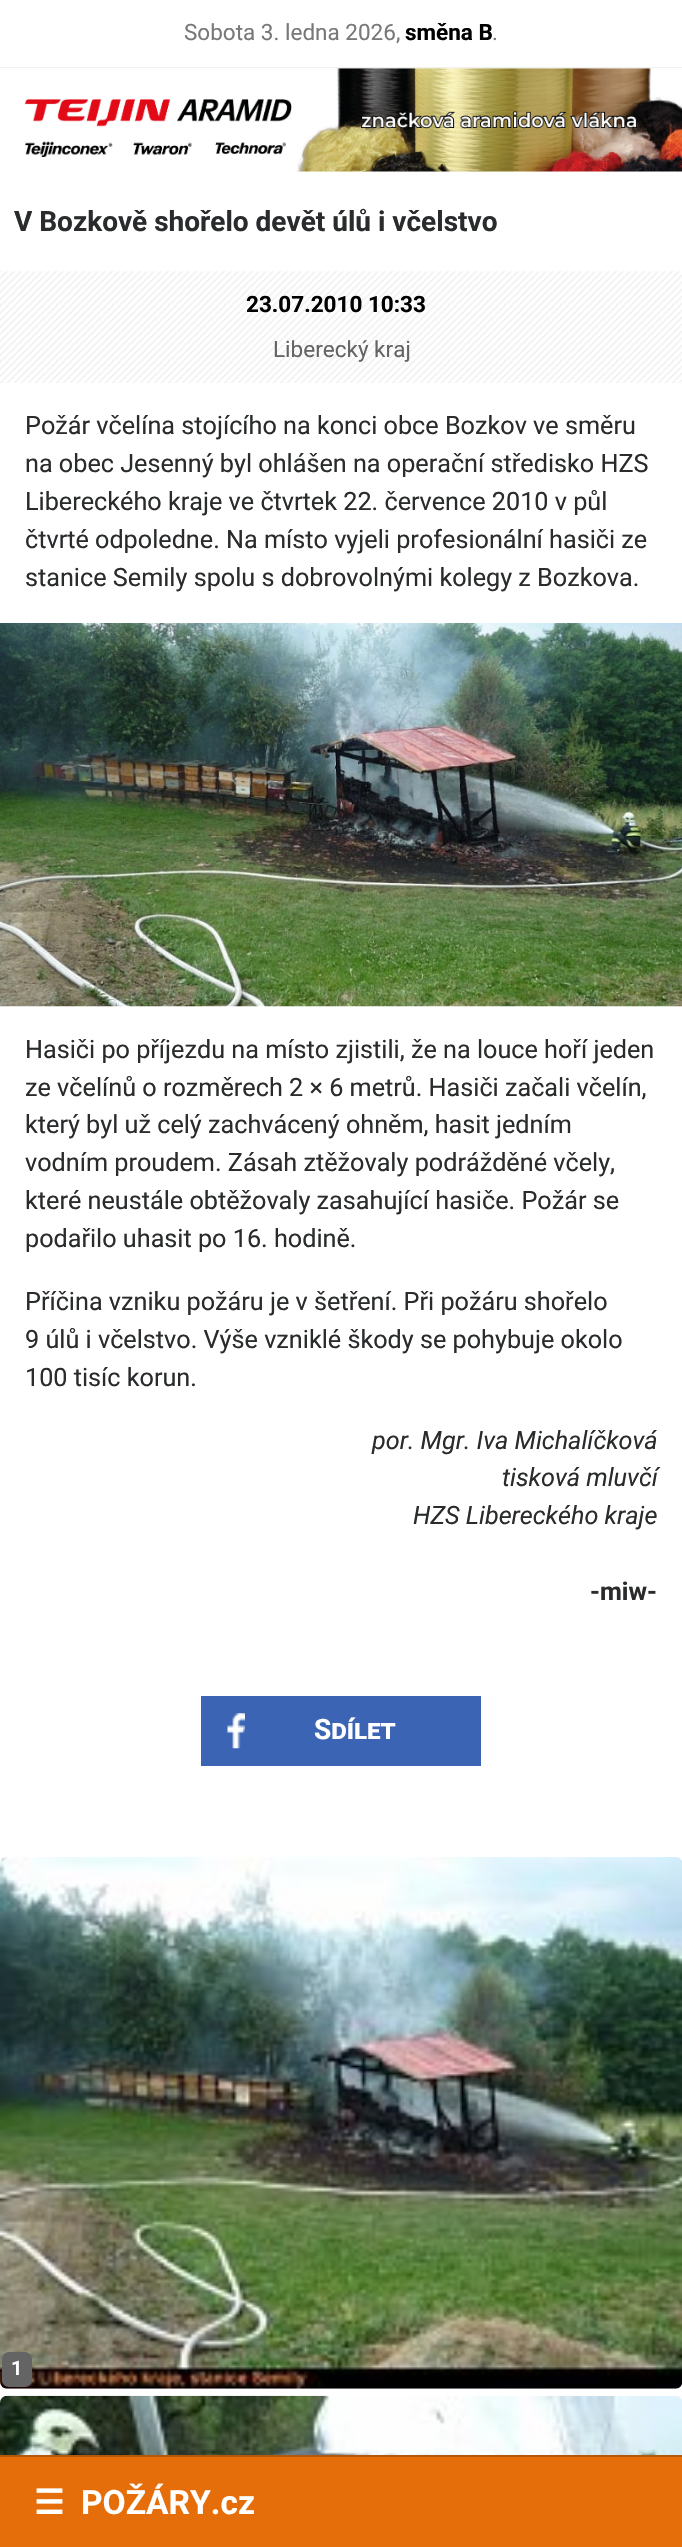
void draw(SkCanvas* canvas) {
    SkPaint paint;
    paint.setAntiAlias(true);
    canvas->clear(0xFFFFFFFF);
    paint.setColor(0xFFF0F0F0);
    canvas->drawRect(SkRect::MakeXYWH(0, 67, 682, 1), paint);
    SkFont font1(fontMgr->matchFamilyStyle("Roboto", SkFontStyle::Normal()), 22.5f);
    font1.setSubpixel(true);
    paint.setColor(0xFF787878);
    canvas->drawString("Sobota 3. ledna 2026,", 184, 40, font1, paint);
    SkFont font2(fontMgr->matchFamilyStyle("Roboto", SkFontStyle::Bold()), 22.5f);
    font2.setSubpixel(true);
    paint.setColor(0xFF000000);
    canvas->drawString("směna B", 405, 40, font2, paint);
    paint.setColor(0xFF787878);
    canvas->drawString(".", 492, 40, font1, paint);
    paint.setColor(0xFFFAFAFA);
    canvas->drawRect(SkRect::MakeXYWH(0, 68, 682, 104), paint);
    canvas->drawImageRect(SkImages::DeferredFromEncodedData(SkData::MakeFromFileName("img1.png")), SkRect::MakeXYWH(0, 68, 682, 104), SkSamplingOptions());
    SkFont font3(fontMgr->matchFamilyStyle("Roboto", SkFontStyle::Bold()), 28);
    font3.setSubpixel(true);
    paint.setColor(0xFF292B2C);
    canvas->drawString("V Bozkově shořelo devět úlů i včelstvo", 14, 231, font3, paint);
    canvas->drawImageRect(SkImages::DeferredFromEncodedData(SkData::MakeFromFileName("img2.png")), SkRect::MakeXYWH(0, 271, 682, 112), SkSamplingOptions());
    paint.setColor(0xFF000000);
    canvas->drawString("23.07.2010 10:33", 246, 312, font2, paint);
    paint.setColor(0xFF646464);
    canvas->drawString("Liberecký kraj", 273, 357, font1, paint);
    SkFont font4(fontMgr->matchFamilyStyle("Roboto", SkFontStyle::Normal()), 25.2f);
    font4.setSubpixel(true);
    paint.setColor(0xFF292B2C);
    canvas->drawString("Požár včelína stojícího na konci obce Bozkov ve směru", 25, 434, font4, paint);
    canvas->drawString("na obec Jesenný byl ohlášen na operační středisko HZS", 25, 472, font4, paint);
    canvas->drawString("Libereckého kraje ve čtvrtek 22. července 2010 v půl", 25, 510, font4, paint);
    canvas->drawString("čtvrté odpoledne. Na místo vyjeli profesionální hasiči ze", 25, 548, font4, paint);
    canvas->drawString("stanice Semily spolu s dobrovolnými kolegy z Bozkova.", 25, 586, font4, paint);
    canvas->drawImageRect(SkImages::DeferredFromEncodedData(SkData::MakeFromFileName("img3.png")), SkRect::MakeXYWH(0, 623, 682, 384), SkSamplingOptions());
    canvas->drawString("Hasiči po příjezdu na místo zjistili, že na louce hoří jeden", 25, 1058, font4, paint);
    canvas->drawString("ze včelínů o rozměrech 2 × 6 metrů. Hasiči začali včelín,", 25, 1096, font4, paint);
    canvas->drawString("který byl už celý zachvácený ohněm, hasit jedním", 25, 1133, font4, paint);
    canvas->drawString("vodním proudem. Zásah ztěžovaly podrážděné včely,", 25, 1171, font4, paint);
    canvas->drawString("které neustále obtěžovaly zasahující hasiče. Požár se", 25, 1209, font4, paint);
    canvas->drawString("podařilo uhasit po 16. hodině.", 25, 1247, font4, paint);
    canvas->drawString("Příčina vzniku požáru je v šetření. Při požáru shořelo", 25, 1310, font4, paint);
    canvas->drawString("9 úlů i včelstvo. Výše vzniklé škody se pohybuje okolo", 25, 1348, font4, paint);
    canvas->drawString("100 tisíc korun.", 25, 1386, font4, paint);
    SkFont font5(fontMgr->matchFamilyStyle("Roboto", SkFontStyle::Italic()), 25.2f);
    font5.setSubpixel(true);
    canvas->drawString("por. Mgr. Iva Michalíčková", 372, 1449, font5, paint);
    canvas->drawString("tisková mluvčí", 502, 1486, font5, paint);
    canvas->drawString("HZS Libereckého kraje", 413, 1524, font5, paint);
    SkFont font6(fontMgr->matchFamilyStyle("Roboto", SkFontStyle::Bold()), 25.2f);
    font6.setSubpixel(true);
    canvas->drawString("-miw-", 590, 1600, font6, paint);
    paint.setColor(0xFF3C64B4);
    canvas->drawRect(SkRect::MakeXYWH(201, 1696, 280, 70), paint);
    canvas->drawImageRect(SkImages::DeferredFromEncodedData(SkData::MakeFromFileName("img4.png")), SkRect::MakeXYWH(227, 1713, 18, 36), SkSamplingOptions());
    SkFont font7(fontMgr->matchFamilyStyle("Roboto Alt", SkFontStyle::Bold()), 28);
    font7.setSubpixel(true);
    paint.setColor(0xFFFFFFFF);
    canvas->drawString("Sdílet", 314, 1739, font7, paint);
    canvas->drawImageRect(SkImages::DeferredFromEncodedData(SkData::MakeFromFileName("img5.png")), SkRect::MakeXYWH(0, 1857, 682, 532), SkSamplingOptions());
    paint.setColor(0xFF646464);
    canvas->drawRoundRect(SkRect::MakeXYWH(2, 2352, 30, 35), 7, 7, paint);
    SkFont font8(fontMgr->matchFamilyStyle("Roboto", SkFontStyle::Bold()), 20);
    font8.setSubpixel(true);
    paint.setColor(0xFFFFFFFF);
    canvas->drawString("1", 11, 2375, font8, paint);
    canvas->drawImageRect(SkImages::DeferredFromEncodedData(SkData::MakeFromFileName("img6.png")), SkRect::MakeXYWH(0, 2395, 682, 60), SkSamplingOptions());
    paint.setColor(0xFFE66E0A);
    canvas->drawRect(SkRect::MakeXYWH(0, 2457, 682, 90), paint);
    paint.setColor(0xFFB55708);
    canvas->drawRect(SkRect::MakeXYWH(0, 2455, 682, 2), paint);
    SkFont font9(fontMgr->matchFamilyStyle("DejaVu Sans", SkFontStyle::Bold()), 33.5f);
    font9.setSubpixel(true);
    paint.setColor(0xFFFFFFFF);
    canvas->drawString("☰", 34, 2514, font9, paint);
    SkFont font10(fontMgr->matchFamilyStyle("Roboto", SkFontStyle::Bold()), 33.5f);
    font10.setSubpixel(true);
    canvas->drawString("POŽÁRY.cz", 81, 2514, font10, paint);
}
